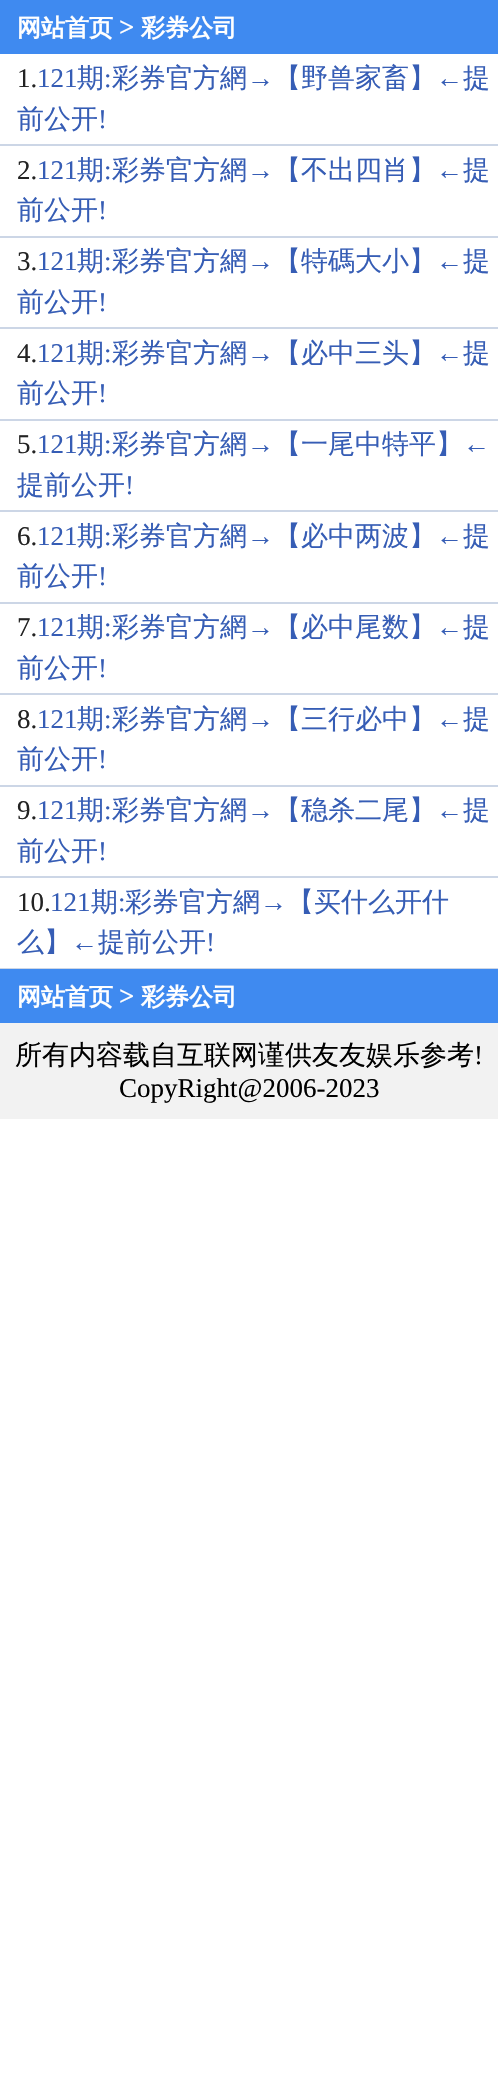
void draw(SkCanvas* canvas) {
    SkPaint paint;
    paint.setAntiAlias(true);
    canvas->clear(0xFFFFFFFF);
    paint.setColor(0xFF3F8AF0);
    canvas->drawRect(SkRect::MakeXYWH(0, 0, 498, 54), paint);
    SkFont font1(fontMgr->matchFamilyStyle("WenQuanYi Zen Hei", SkFontStyle::Bold()), 24);
    font1.setSubpixel(true);
    paint.setColor(0xFFFFFFFF);
    canvas->drawString("网站首页", 17, 36, font1, paint);
    SkFont font2(fontMgr->matchFamilyStyle("Liberation Serif", SkFontStyle::Bold()), 27);
    font2.setSubpixel(true);
    canvas->drawString(">", 119, 36, font2, paint);
    canvas->drawString("彩券公司", 141, 36, font1, paint);
    paint.setColor(0xFFCCD6E6);
    canvas->drawRect(SkRect::MakeXYWH(0, 144, 498, 2), paint);
    SkFont font3(fontMgr->matchFamilyStyle("Liberation Serif", SkFontStyle::Normal()), 27);
    font3.setSubpixel(true);
    paint.setColor(0xFF232323);
    canvas->drawString("1.", 17, 87, font3, paint);
    paint.setColor(0xFF365DB5);
    canvas->drawString("121", 37, 87, font3, paint);
    SkFont font4(fontMgr->matchFamilyStyle("WenQuanYi Zen Hei", SkFontStyle(500, SkFontStyle::kNormal_Width, SkFontStyle::kUpright_Slant)), 27);
    font4.setSubpixel(true);
    canvas->drawString("期", 77, 87, font4, paint);
    canvas->drawString(":", 104, 87, font3, paint);
    canvas->drawString("彩券官方網", 112, 87, font4, paint);
    canvas->drawString("→", 247, 87, font3, paint);
    canvas->drawString("【野兽家畜】", 274, 87, font4, paint);
    canvas->drawString("←", 436, 87, font3, paint);
    canvas->drawString("提", 463, 87, font4, paint);
    canvas->drawString("前公开", 17, 128, font4, paint);
    canvas->drawString("!", 98, 128, font3, paint);
    paint.setColor(0xFFCCD6E6);
    canvas->drawRect(SkRect::MakeXYWH(0, 236, 498, 2), paint);
    paint.setColor(0xFF232323);
    canvas->drawString("2.", 17, 179, font3, paint);
    paint.setColor(0xFF365DB5);
    canvas->drawString("121", 37, 179, font3, paint);
    canvas->drawString("期", 77, 179, font4, paint);
    canvas->drawString(":", 104, 179, font3, paint);
    canvas->drawString("彩券官方網", 112, 179, font4, paint);
    canvas->drawString("→", 247, 179, font3, paint);
    canvas->drawString("【不出四肖】", 274, 179, font4, paint);
    canvas->drawString("←", 436, 179, font3, paint);
    canvas->drawString("提", 463, 179, font4, paint);
    canvas->drawString("前公开", 17, 219, font4, paint);
    canvas->drawString("!", 98, 219, font3, paint);
    paint.setColor(0xFFCCD6E6);
    canvas->drawRect(SkRect::MakeXYWH(0, 327, 498, 2), paint);
    paint.setColor(0xFF232323);
    canvas->drawString("3.", 17, 270, font3, paint);
    paint.setColor(0xFF365DB5);
    canvas->drawString("121", 37, 270, font3, paint);
    canvas->drawString("期", 77, 270, font4, paint);
    canvas->drawString(":", 104, 270, font3, paint);
    canvas->drawString("彩券官方網", 112, 270, font4, paint);
    canvas->drawString("→", 247, 270, font3, paint);
    canvas->drawString("【特碼大小】", 274, 270, font4, paint);
    canvas->drawString("←", 436, 270, font3, paint);
    canvas->drawString("提", 463, 270, font4, paint);
    canvas->drawString("前公开", 17, 311, font4, paint);
    canvas->drawString("!", 98, 311, font3, paint);
    paint.setColor(0xFFCCD6E6);
    canvas->drawRect(SkRect::MakeXYWH(0, 419, 498, 2), paint);
    paint.setColor(0xFF232323);
    canvas->drawString("4.", 17, 362, font3, paint);
    paint.setColor(0xFF365DB5);
    canvas->drawString("121", 37, 362, font3, paint);
    canvas->drawString("期", 77, 362, font4, paint);
    canvas->drawString(":", 104, 362, font3, paint);
    canvas->drawString("彩券官方網", 112, 362, font4, paint);
    canvas->drawString("→", 247, 362, font3, paint);
    canvas->drawString("【必中三头】", 274, 362, font4, paint);
    canvas->drawString("←", 436, 362, font3, paint);
    canvas->drawString("提", 463, 362, font4, paint);
    canvas->drawString("前公开", 17, 402, font4, paint);
    canvas->drawString("!", 98, 402, font3, paint);
    paint.setColor(0xFFCCD6E6);
    canvas->drawRect(SkRect::MakeXYWH(0, 510, 498, 2), paint);
    paint.setColor(0xFF232323);
    canvas->drawString("5.", 17, 453, font3, paint);
    paint.setColor(0xFF365DB5);
    canvas->drawString("121", 37, 453, font3, paint);
    canvas->drawString("期", 77, 453, font4, paint);
    canvas->drawString(":", 104, 453, font3, paint);
    canvas->drawString("彩券官方網", 112, 453, font4, paint);
    canvas->drawString("→", 247, 453, font3, paint);
    canvas->drawString("【一尾中特平】", 274, 453, font4, paint);
    canvas->drawString("←", 463, 453, font3, paint);
    canvas->drawString("提前公开", 17, 494, font4, paint);
    canvas->drawString("!", 125, 494, font3, paint);
    paint.setColor(0xFFCCD6E6);
    canvas->drawRect(SkRect::MakeXYWH(0, 602, 498, 2), paint);
    paint.setColor(0xFF232323);
    canvas->drawString("6.", 17, 545, font3, paint);
    paint.setColor(0xFF365DB5);
    canvas->drawString("121", 37, 545, font3, paint);
    canvas->drawString("期", 77, 545, font4, paint);
    canvas->drawString(":", 104, 545, font3, paint);
    canvas->drawString("彩券官方網", 112, 545, font4, paint);
    canvas->drawString("→", 247, 545, font3, paint);
    canvas->drawString("【必中两波】", 274, 545, font4, paint);
    canvas->drawString("←", 436, 545, font3, paint);
    canvas->drawString("提", 463, 545, font4, paint);
    canvas->drawString("前公开", 17, 585, font4, paint);
    canvas->drawString("!", 98, 585, font3, paint);
    paint.setColor(0xFFCCD6E6);
    canvas->drawRect(SkRect::MakeXYWH(0, 693, 498, 2), paint);
    paint.setColor(0xFF232323);
    canvas->drawString("7.", 17, 636, font3, paint);
    paint.setColor(0xFF365DB5);
    canvas->drawString("121", 37, 636, font3, paint);
    canvas->drawString("期", 77, 636, font4, paint);
    canvas->drawString(":", 104, 636, font3, paint);
    canvas->drawString("彩券官方網", 112, 636, font4, paint);
    canvas->drawString("→", 247, 636, font3, paint);
    canvas->drawString("【必中尾数】", 274, 636, font4, paint);
    canvas->drawString("←", 436, 636, font3, paint);
    canvas->drawString("提", 463, 636, font4, paint);
    canvas->drawString("前公开", 17, 677, font4, paint);
    canvas->drawString("!", 98, 677, font3, paint);
    paint.setColor(0xFFCCD6E6);
    canvas->drawRect(SkRect::MakeXYWH(0, 785, 498, 2), paint);
    paint.setColor(0xFF232323);
    canvas->drawString("8.", 17, 728, font3, paint);
    paint.setColor(0xFF365DB5);
    canvas->drawString("121", 37, 728, font3, paint);
    canvas->drawString("期", 77, 728, font4, paint);
    canvas->drawString(":", 104, 728, font3, paint);
    canvas->drawString("彩券官方網", 112, 728, font4, paint);
    canvas->drawString("→", 247, 728, font3, paint);
    canvas->drawString("【三行必中】", 274, 728, font4, paint);
    canvas->drawString("←", 436, 728, font3, paint);
    canvas->drawString("提", 463, 728, font4, paint);
    canvas->drawString("前公开", 17, 768, font4, paint);
    canvas->drawString("!", 98, 768, font3, paint);
    paint.setColor(0xFFCCD6E6);
    canvas->drawRect(SkRect::MakeXYWH(0, 876, 498, 2), paint);
    paint.setColor(0xFF232323);
    canvas->drawString("9.", 17, 819, font3, paint);
    paint.setColor(0xFF365DB5);
    canvas->drawString("121", 37, 819, font3, paint);
    canvas->drawString("期", 77, 819, font4, paint);
    canvas->drawString(":", 104, 819, font3, paint);
    canvas->drawString("彩券官方網", 112, 819, font4, paint);
    canvas->drawString("→", 247, 819, font3, paint);
    canvas->drawString("【稳杀二尾】", 274, 819, font4, paint);
    canvas->drawString("←", 436, 819, font3, paint);
    canvas->drawString("提", 463, 819, font4, paint);
    canvas->drawString("前公开", 17, 860, font4, paint);
    canvas->drawString("!", 98, 860, font3, paint);
    paint.setColor(0xFFCCD6E6);
    canvas->drawRect(SkRect::MakeXYWH(0, 968, 498, 1), paint);
    paint.setColor(0xFF232323);
    canvas->drawString("10.", 17, 911, font3, paint);
    paint.setColor(0xFF365DB5);
    canvas->drawString("121", 50, 911, font3, paint);
    canvas->drawString("期", 91, 911, font4, paint);
    canvas->drawString(":", 118, 911, font3, paint);
    canvas->drawString("彩券官方網", 125, 911, font4, paint);
    canvas->drawString("→", 260, 911, font3, paint);
    canvas->drawString("【买什么开什", 287, 911, font4, paint);
    canvas->drawString("么】", 17, 951, font4, paint);
    canvas->drawString("←", 71, 951, font3, paint);
    canvas->drawString("提前公开", 98, 951, font4, paint);
    canvas->drawString("!", 206, 951, font3, paint);
    paint.setColor(0xFF3F8AF0);
    canvas->drawRect(SkRect::MakeXYWH(0, 969, 498, 54), paint);
    paint.setColor(0xFFFFFFFF);
    canvas->drawString("网站首页", 17, 1005, font1, paint);
    canvas->drawString(">", 119, 1005, font2, paint);
    canvas->drawString("彩券公司", 141, 1005, font1, paint);
    paint.setColor(0xFFF2F2F2);
    canvas->drawRect(SkRect::MakeXYWH(0, 1023, 498, 96), paint);
    paint.setColor(0xFF000000);
    canvas->drawString("所有内容载自互联网谨供友友娱乐参考", 15, 1064, font4, paint);
    canvas->drawString("!", 474, 1064, font3, paint);
    canvas->drawString("CopyRight@2006-2023", 119, 1097, font3, paint);
}
